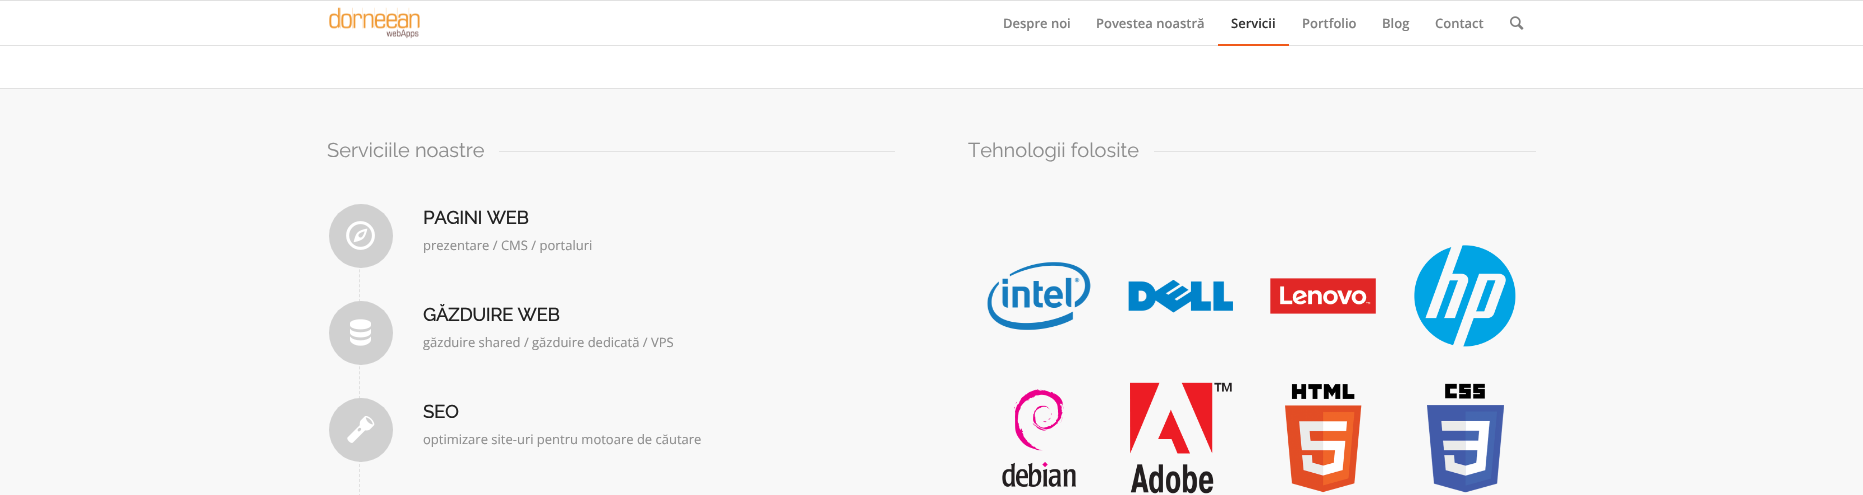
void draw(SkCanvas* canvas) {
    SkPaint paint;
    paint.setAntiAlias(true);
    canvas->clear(0xFFFFFFFF);
    paint.setColor(0xFFE1E1E1);
    canvas->drawRect(SkRect::MakeXYWH(0, 0, 1863, 1), paint);
    canvas->drawRect(SkRect::MakeXYWH(0, 45, 1863, 1), paint);
    canvas->drawImageRect(SkImages::DeferredFromEncodedData(SkData::MakeFromFileName("img1.png")), SkRect::MakeXYWH(329, 7, 91, 32), SkSamplingOptions());
    SkFont font1(fontMgr->matchFamilyStyle("Open Sans", SkFontStyle(600, SkFontStyle::kNormal_Width, SkFontStyle::kUpright_Slant)), 13);
    font1.setSubpixel(true);
    paint.setColor(0xFF808080);
    canvas->drawString("Despre noi", 1003, 28, font1, paint);
    canvas->drawString("Povestea noastră", 1096, 28, font1, paint);
    paint.setColor(0xFF333333);
    canvas->drawString("Servicii", 1231, 28, font1, paint);
    paint.setColor(0xFFF05A1A);
    canvas->drawRect(SkRect::MakeXYWH(1218, 44, 71, 2), paint);
    paint.setColor(0xFF808080);
    canvas->drawString("Portfolio", 1302, 28, font1, paint);
    canvas->drawString("Blog", 1382, 28, font1, paint);
    canvas->drawString("Contact", 1435, 28, font1, paint);
    canvas->drawImageRect(SkImages::DeferredFromEncodedData(SkData::MakeFromFileName("img2.png")), SkRect::MakeXYWH(1510, 16, 14, 14), SkSamplingOptions());
    paint.setColor(0xFFF8F8F8);
    canvas->drawRect(SkRect::MakeXYWH(0, 89, 1863, 406), paint);
    paint.setColor(0xFFE1E1E1);
    canvas->drawRect(SkRect::MakeXYWH(0, 88, 1863, 1), paint);
    SkFont font2(fontMgr->matchFamilyStyle("Raleway", SkFontStyle(100, SkFontStyle::kNormal_Width, SkFontStyle::kUpright_Slant)), 20);
    font2.setSubpixel(true);
    paint.setColor(0xFF8D8D8D);
    canvas->drawString("Serviciile noastre", 327, 157, font2, paint);
    paint.setColor(0xFFE3E3E3);
    canvas->drawRect(SkRect::MakeXYWH(499, 151, 396, 1), paint);
    paint.setStyle(SkPaint::kStroke_Style);
    paint.setStrokeWidth(1);
    paint.setColor(0xFFE1E1E1);
    paint.setPathEffect(SkDashPathEffect::Make({{3, 1.95f}}, 0));
    canvas->drawPath(SkPathBuilder().moveTo(359.5f, 205).lineTo(359.5f, 302).detach(), paint);
    paint.setPathEffect(nullptr);
    paint.setStyle(SkPaint::kFill_Style);
    paint.setColor(0xFFD0D0D0);
    canvas->drawCircle(361, 236, 32, paint);
    canvas->drawImageRect(SkImages::DeferredFromEncodedData(SkData::MakeFromFileName("img3.png")), SkRect::MakeXYWH(346, 221, 29, 29), SkSamplingOptions());
    SkFont font3(fontMgr->matchFamilyStyle("Raleway", SkFontStyle::Bold()), 18);
    font3.setSubpixel(true);
    paint.setColor(0xFF222222);
    canvas->drawString("PAGINI WEB", 423, 224, font3, paint);
    SkFont font4(fontMgr->matchFamilyStyle("Open Sans", SkFontStyle::Normal()), 13);
    font4.setSubpixel(true);
    paint.setColor(0xFF8D8D8D);
    canvas->drawString("prezentare / CMS / portaluri", 423, 250, font4, paint);
    paint.setStyle(SkPaint::kStroke_Style);
    paint.setColor(0xFFE1E1E1);
    paint.setPathEffect(SkDashPathEffect::Make({{3, 1.95f}}, 0));
    canvas->drawPath(SkPathBuilder().moveTo(359.5f, 302).lineTo(359.5f, 399).detach(), paint);
    paint.setPathEffect(nullptr);
    paint.setStyle(SkPaint::kFill_Style);
    paint.setColor(0xFFD0D0D0);
    canvas->drawCircle(361, 333, 32, paint);
    canvas->drawImageRect(SkImages::DeferredFromEncodedData(SkData::MakeFromFileName("img4.png")), SkRect::MakeXYWH(350, 319, 21, 27), SkSamplingOptions());
    paint.setColor(0xFF222222);
    canvas->drawString("GĂZDUIRE WEB", 423, 321, font3, paint);
    paint.setColor(0xFF8D8D8D);
    canvas->drawString("găzduire shared / găzduire dedicată / VPS", 423, 347, font4, paint);
    paint.setStyle(SkPaint::kStroke_Style);
    paint.setColor(0xFFE1E1E1);
    paint.setPathEffect(SkDashPathEffect::Make({{3, 2}}, 0));
    canvas->drawPath(SkPathBuilder().moveTo(359.5f, 399).lineTo(359.5f, 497).detach(), paint);
    paint.setPathEffect(nullptr);
    paint.setStyle(SkPaint::kFill_Style);
    paint.setColor(0xFFD0D0D0);
    canvas->drawCircle(361, 430, 32, paint);
    canvas->drawImageRect(SkImages::DeferredFromEncodedData(SkData::MakeFromFileName("img5.png")), SkRect::MakeXYWH(347, 416, 28, 27), SkSamplingOptions());
    paint.setColor(0xFF222222);
    canvas->drawString("SEO", 423, 418, font3, paint);
    paint.setColor(0xFF8D8D8D);
    canvas->drawString("optimizare site-uri pentru motoare de căutare", 423, 444, font4, paint);
    canvas->drawString("Tehnologii folosite", 968, 157, font2, paint);
    paint.setColor(0xFFE3E3E3);
    canvas->drawRect(SkRect::MakeXYWH(1154, 151, 382, 1), paint);
    canvas->drawImageRect(SkImages::DeferredFromEncodedData(SkData::MakeFromFileName("img6.png")), SkRect::MakeXYWH(987, 262, 104, 68), SkSamplingOptions());
    canvas->drawImageRect(SkImages::DeferredFromEncodedData(SkData::MakeFromFileName("img7.png")), SkRect::MakeXYWH(1128, 280, 105, 33), SkSamplingOptions());
    canvas->drawImageRect(SkImages::DeferredFromEncodedData(SkData::MakeFromFileName("img8.png")), SkRect::MakeXYWH(1270, 278, 106, 36), SkSamplingOptions());
    canvas->drawImageRect(SkImages::DeferredFromEncodedData(SkData::MakeFromFileName("img9.png")), SkRect::MakeXYWH(1414, 245, 102, 102), SkSamplingOptions());
    canvas->drawImageRect(SkImages::DeferredFromEncodedData(SkData::MakeFromFileName("img10.png")), SkRect::MakeXYWH(1002, 389, 74, 98), SkSamplingOptions());
    canvas->drawImageRect(SkImages::DeferredFromEncodedData(SkData::MakeFromFileName("img11.png")), SkRect::MakeXYWH(1130, 382, 102, 112), SkSamplingOptions());
    canvas->drawImageRect(SkImages::DeferredFromEncodedData(SkData::MakeFromFileName("img12.png")), SkRect::MakeXYWH(1285, 384, 77, 109), SkSamplingOptions());
    canvas->drawImageRect(SkImages::DeferredFromEncodedData(SkData::MakeFromFileName("img13.png")), SkRect::MakeXYWH(1427, 383, 77, 110), SkSamplingOptions());
}
